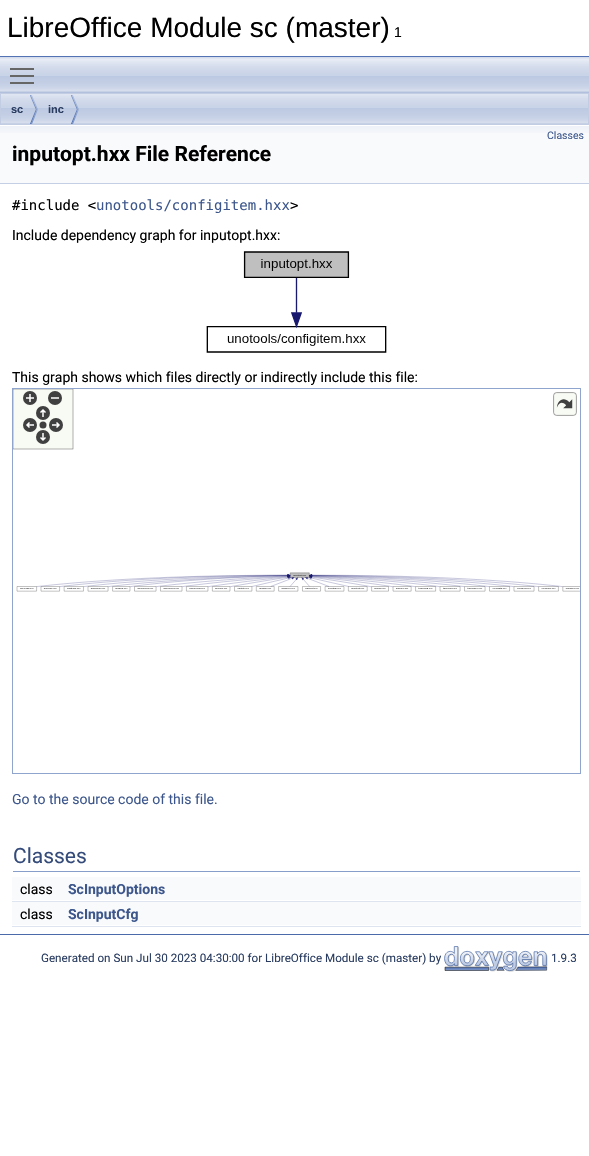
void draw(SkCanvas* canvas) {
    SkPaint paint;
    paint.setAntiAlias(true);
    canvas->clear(0xFFFFFFFF);
    paint.setColor(0xFF5373B4);
    canvas->drawRect(SkRect::MakeXYWH(0, 56, 589, 1), paint);
    SkFont font1(fontMgr->matchFamilyStyle("Liberation Sans", SkFontStyle::Normal()), 28);
    font1.setSubpixel(true);
    paint.setColor(0xFF000000);
    canvas->drawString("LibreOffice Module sc (master)", 7, 37, font1, paint);
    SkFont font2(fontMgr->matchFamilyStyle("Liberation Sans", SkFontStyle::Normal()), 14);
    font2.setSubpixel(true);
    canvas->drawString("1", 394, 37, font2, paint);
    canvas->drawImageRect(SkImages::DeferredFromEncodedData(SkData::MakeFromFileName("img1.png")), SkRect::MakeXYWH(0, 57, 589, 36), SkSamplingOptions());
    paint.setColor(0xFF666666);
    canvas->drawRect(SkRect::MakeXYWH(10, 75, 24, 2), paint);
    canvas->drawRect(SkRect::MakeXYWH(10, 68, 24, 2), paint);
    canvas->drawRect(SkRect::MakeXYWH(10, 82, 24, 2), paint);
    canvas->drawImageRect(SkImages::DeferredFromEncodedData(SkData::MakeFromFileName("img2.png")), SkRect::MakeXYWH(1, 94, 587, 30), SkSamplingOptions());
    paint.setStyle(SkPaint::kStroke_Style);
    paint.setStrokeWidth(1);
    paint.setColor(0xFFC2CDE4);
    canvas->drawRect(SkRect::MakeXYWH(0.5f, 93.5f, 588, 31), paint);
    canvas->drawImageRect(SkImages::DeferredFromEncodedData(SkData::MakeFromFileName("img3.png")), SkRect::MakeXYWH(30, 95, 8, 29), SkSamplingOptions());
    SkFont font3(fontMgr->matchFamilyStyle("Liberation Sans", SkFontStyle::Bold()), 11);
    font3.setSubpixel(true);
    paint.setStyle(SkPaint::kFill_Style);
    paint.setColor(0xFF2A3D61);
    canvas->drawString("sc", 11, 113, font3, paint);
    canvas->drawImageRect(SkImages::DeferredFromEncodedData(SkData::MakeFromFileName("img3.png")), SkRect::MakeXYWH(71, 95, 8, 29), SkSamplingOptions());
    canvas->drawString("inc", 48, 113, font3, paint);
    paint.setColor(0xFFF9FAFC);
    canvas->drawRect(SkRect::MakeXYWH(0, 133, 589, 50), paint);
    canvas->drawImageRect(SkImages::DeferredFromEncodedData(SkData::MakeFromFileName("img4.png")), SkRect::MakeXYWH(0, 125, 589, 8), SkSamplingOptions());
    paint.setColor(0xFFC4CFE5);
    canvas->drawRect(SkRect::MakeXYWH(0, 183, 589, 1), paint);
    SkFont font4(fontMgr->matchFamilyStyle("Roboto", SkFontStyle::Normal()), 10.5f);
    font4.setSubpixel(true);
    paint.setColor(0xFF3D578C);
    canvas->drawString("Classes", 547, 139, font4, paint);
    SkFont font5(fontMgr->matchFamilyStyle("Roboto", SkFontStyle::Bold()), 21);
    font5.setSubpixel(true);
    paint.setColor(0xFF000000);
    canvas->drawString("inputopt.hxx File Reference", 12, 161, font5, paint);
    SkFont font6(fontMgr->matchFamilyStyle("DejaVu Sans Mono", SkFontStyle::Normal()), 14);
    font6.setSubpixel(true);
    canvas->drawString("#include <", 12, 210, font6, paint);
    paint.setColor(0xFF3D578C);
    canvas->drawString("unotools/configitem.hxx", 96, 210, font6, paint);
    paint.setColor(0xFF000000);
    canvas->drawString(">", 290, 210, font6, paint);
    SkFont font7(fontMgr->matchFamilyStyle("Roboto", SkFontStyle::Normal()), 14);
    font7.setSubpixel(true);
    canvas->drawString("Include dependency graph for inputopt.hxx:", 12, 240, font7, paint);
    canvas->drawImageRect(SkImages::DeferredFromEncodedData(SkData::MakeFromFileName("img5.png")), SkRect::MakeXYWH(206, 251, 181, 102), SkSamplingOptions());
    canvas->drawString("This graph shows which files directly or indirectly include this file:", 12, 382, font7, paint);
    paint.setStyle(SkPaint::kStroke_Style);
    paint.setColor(0xFF90A5CE);
    canvas->drawRect(SkRect::MakeXYWH(12.5f, 388.5f, 568, 385), paint);
    canvas->drawImageRect(SkImages::DeferredFromEncodedData(SkData::MakeFromFileName("img6.png")), SkRect::MakeXYWH(13, 389, 567, 203), SkSamplingOptions());
    paint.setStyle(SkPaint::kFill_Style);
    paint.setColor(0xFF3D578C);
    canvas->drawString("Go to the source code of this file.", 12, 804, font7, paint);
    paint.setColor(0xFF879ECB);
    canvas->drawRect(SkRect::MakeXYWH(13, 871, 567, 1), paint);
    SkFont font8(fontMgr->matchFamilyStyle("Roboto", SkFontStyle::Normal()), 21);
    font8.setSubpixel(true);
    paint.setColor(0xFF354C7B);
    canvas->drawString("Classes", 13, 863, font8, paint);
    paint.setColor(0xFFF9FAFC);
    canvas->drawRect(SkRect::MakeXYWH(12, 877, 569, 23), paint);
    paint.setColor(0xFF000000);
    canvas->drawString("class", 20, 894, font7, paint);
    SkFont font9(fontMgr->matchFamilyStyle("Roboto", SkFontStyle::Bold()), 14);
    font9.setSubpixel(true);
    paint.setColor(0xFF3D578C);
    canvas->drawString("ScInputOptions", 68, 894, font9, paint);
    paint.setColor(0xFFDEE4F0);
    canvas->drawRect(SkRect::MakeXYWH(12, 901, 569, 1), paint);
    paint.setColor(0xFFF9FAFC);
    canvas->drawRect(SkRect::MakeXYWH(12, 902, 569, 23), paint);
    paint.setColor(0xFF000000);
    canvas->drawString("class", 20, 919, font7, paint);
    paint.setColor(0xFF3D578C);
    canvas->drawString("ScInputCfg", 68, 919, font9, paint);
    paint.setColor(0xFFDEE4F0);
    canvas->drawRect(SkRect::MakeXYWH(12, 926, 569, 1), paint);
    paint.setColor(0xFF4A6AAA);
    canvas->drawRect(SkRect::MakeXYWH(0, 934, 589, 1), paint);
    SkFont font10(fontMgr->matchFamilyStyle("Roboto", SkFontStyle::Normal()), 11.65f);
    font10.setSubpixel(true);
    paint.setColor(0xFF2A3D61);
    canvas->drawString("Generated on Sun Jul 30 2023 04:30:00 for LibreOffice Module sc (master) by", 41, 962, font10, paint);
    canvas->drawImageRect(SkImages::DeferredFromEncodedData(SkData::MakeFromFileName("img7.png")), SkRect::MakeXYWH(444, 946, 104, 26), SkSamplingOptions());
    canvas->drawString("1.9.3", 551, 962, font10, paint);
}
